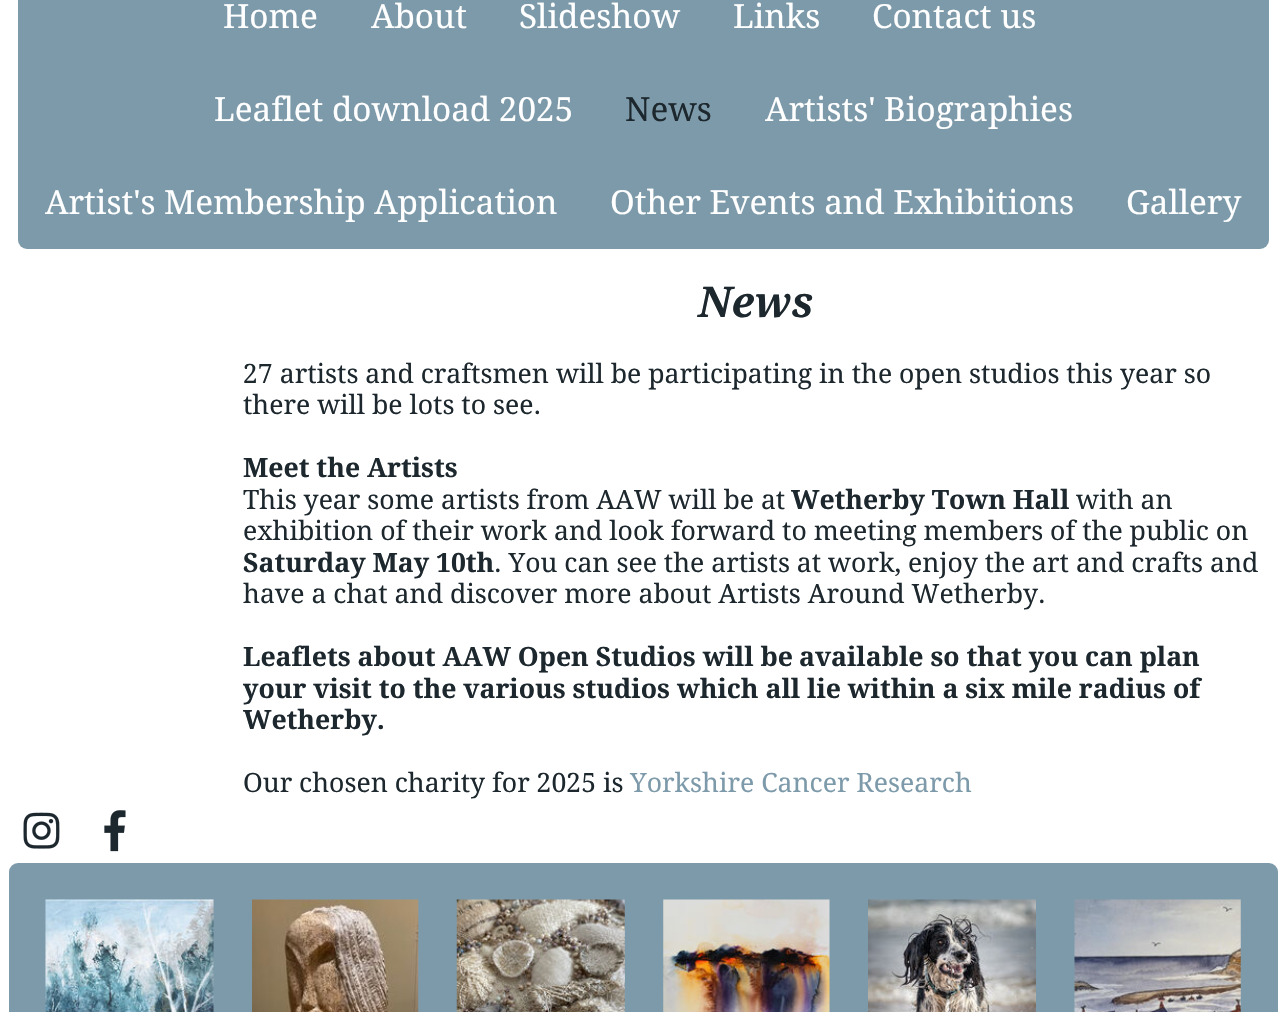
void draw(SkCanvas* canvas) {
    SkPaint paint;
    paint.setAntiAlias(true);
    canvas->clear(0xFFFFFFFF);
    paint.setColor(0xFF7D9AAA);
    canvas->drawRoundRect(SkRect::MakeXYWH(18, -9, 1251, 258), 9, 9, paint);
    SkFont font1(fontMgr->matchFamilyStyle("Droid Serif", SkFontStyle::Normal()), 33.25f);
    font1.setSubpixel(true);
    paint.setColor(0xFFFFFFFF);
    canvas->drawString("Home", 223, 28, font1, paint);
    canvas->drawString("About", 371, 28, font1, paint);
    canvas->drawString("Slideshow", 519, 28, font1, paint);
    canvas->drawString("Links", 733, 28, font1, paint);
    canvas->drawString("Contact us", 872, 28, font1, paint);
    canvas->drawString("Leaflet download 2025", 214, 121, font1, paint);
    paint.setColor(0xFF1D282E);
    canvas->drawString("News", 625, 121, font1, paint);
    paint.setColor(0xFFFFFFFF);
    canvas->drawString("Artists' Biographies", 765, 121, font1, paint);
    canvas->drawString("Artist's Membership Application", 45, 214, font1, paint);
    canvas->drawString("Other Events and Exhibitions", 610, 214, font1, paint);
    canvas->drawString("Gallery", 1126, 214, font1, paint);
    SkFont font2(fontMgr->matchFamilyStyle("Droid Serif", SkFontStyle::BoldItalic()), 42.5f);
    font2.setSubpixel(true);
    paint.setColor(0xFF1D282E);
    canvas->drawString("News", 698, 317, font2, paint);
    SkFont font3(fontMgr->matchFamilyStyle("Droid Serif", SkFontStyle::Normal()), 26.6f);
    font3.setSubpixel(true);
    canvas->drawString("27 artists and craftsmen will be participating in the open studios this year so", 243, 383, font3, paint);
    canvas->drawString("there will be lots to see.", 243, 414, font3, paint);
    SkFont font4(fontMgr->matchFamilyStyle("Droid Serif", SkFontStyle::Bold()), 26.6f);
    font4.setSubpixel(true);
    canvas->drawString("Meet the Artists", 243, 477, font4, paint);
    canvas->drawString("This year some artists from AAW will be at", 243, 509, font3, paint);
    canvas->drawString("Wetherby Town Hall", 791, 509, font4, paint);
    canvas->drawString("with an", 1076, 509, font3, paint);
    canvas->drawString("exhibition of their work and look forward to meeting members of the public on", 243, 540, font3, paint);
    canvas->drawString("Saturday May 10th", 243, 572, font4, paint);
    canvas->drawString(". You can see the artists at work, enjoy the art and crafts and", 494, 572, font3, paint);
    canvas->drawString("have a chat and discover more about Artists Around Wetherby.", 243, 603, font3, paint);
    canvas->drawString("Leaflets about AAW Open Studios will be", 243, 666, font4, paint);
    canvas->drawString("available so that you can plan", 799, 666, font4, paint);
    canvas->drawString("your visit to the various studios which all lie within a six mile radius of", 243, 698, font4, paint);
    canvas->drawString("Wetherby.", 243, 729, font4, paint);
    canvas->drawString("Our chosen charity for 2025 is", 243, 792, font3, paint);
    paint.setColor(0xFF7D9AAA);
    canvas->drawString("Yorkshire Cancer Research", 630, 792, font3, paint);
    canvas->drawImageRect(SkImages::DeferredFromEncodedData(SkData::MakeFromFileName("img1.png")), SkRect::MakeXYWH(23, 812, 37, 37), SkSamplingOptions());
    canvas->drawImageRect(SkImages::DeferredFromEncodedData(SkData::MakeFromFileName("img2.png")), SkRect::MakeXYWH(104, 810, 22, 42), SkSamplingOptions());
    canvas->drawRoundRect(SkRect::MakeXYWH(9, 863, 1269, 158), 9, 9, paint);
    canvas->drawImageRect(SkImages::DeferredFromEncodedData(SkData::MakeFromFileName("img3.png")), SkRect::MakeXYWH(45, 899, 169, 113), SkSamplingOptions());
    canvas->drawImageRect(SkImages::DeferredFromEncodedData(SkData::MakeFromFileName("img4.png")), SkRect::MakeXYWH(252, 899, 167, 113), SkSamplingOptions());
    canvas->drawImageRect(SkImages::DeferredFromEncodedData(SkData::MakeFromFileName("img5.png")), SkRect::MakeXYWH(456, 899, 169, 113), SkSamplingOptions());
    canvas->drawImageRect(SkImages::DeferredFromEncodedData(SkData::MakeFromFileName("img6.png")), SkRect::MakeXYWH(663, 899, 167, 113), SkSamplingOptions());
    canvas->drawImageRect(SkImages::DeferredFromEncodedData(SkData::MakeFromFileName("img7.png")), SkRect::MakeXYWH(868, 899, 168, 113), SkSamplingOptions());
    canvas->drawImageRect(SkImages::DeferredFromEncodedData(SkData::MakeFromFileName("img8.png")), SkRect::MakeXYWH(1074, 899, 167, 113), SkSamplingOptions());
}
